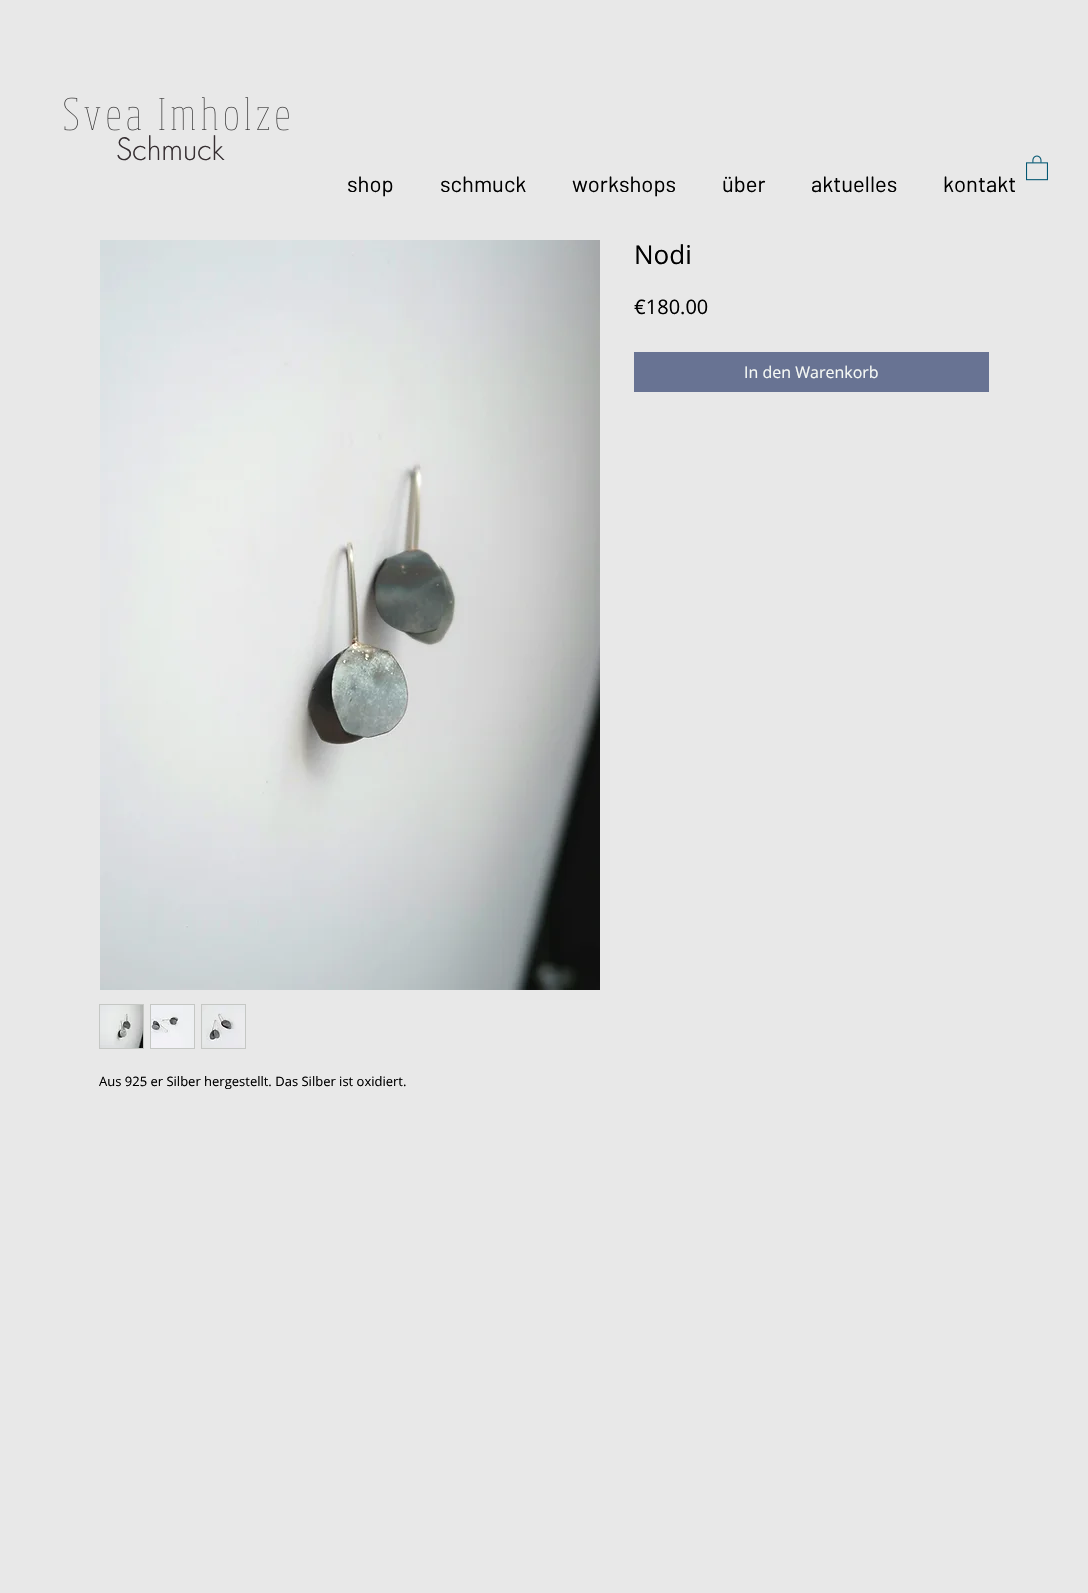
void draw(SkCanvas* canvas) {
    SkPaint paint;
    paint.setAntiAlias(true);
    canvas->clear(0xFFE8E8E8);
    canvas->drawImageRect(SkImages::DeferredFromEncodedData(SkData::MakeFromFileName("img1.png")), SkRect::MakeXYWH(64, 97, 225, 34), SkSamplingOptions());
    SkFont font1(fontMgr->matchFamilyStyle("futura", SkFontStyle(300, SkFontStyle::kNormal_Width, SkFontStyle::kUpright_Slant)), 30);
    font1.setSubpixel(true);
    paint.setColor(0xFF362F32);
    canvas->drawString("Schmuck", 116, 160, font1, paint);
    canvas->drawImageRect(SkImages::DeferredFromEncodedData(SkData::MakeFromFileName("img2.png")), SkRect::MakeXYWH(1026, 155, 22, 26), SkSamplingOptions());
    SkFont font2(fontMgr->matchFamilyStyle("Barlow", SkFontStyle::Normal()), 22);
    font2.setSubpixel(true);
    paint.setColor(0xFF000000);
    canvas->drawString("shop", 347, 192, font2, paint);
    canvas->drawString("schmuck", 440, 192, font2, paint);
    canvas->drawString("workshops", 572, 192, font2, paint);
    canvas->drawString("über", 722, 192, font2, paint);
    canvas->drawString("aktuelles", 811, 192, font2, paint);
    canvas->drawString("kontakt", 943, 192, font2, paint);
    SkFont font3(fontMgr->matchFamilyStyle("Open Sans", SkFontStyle::Normal()), 26);
    font3.setSubpixel(true);
    canvas->drawString("Nodi", 634, 264, font3, paint);
    SkFont font4(fontMgr->matchFamilyStyle("Open Sans", SkFontStyle::Normal()), 20);
    font4.setSubpixel(true);
    canvas->drawString("€180.00", 634, 314, font4, paint);
    paint.setColor(0xFF687393);
    canvas->drawRect(SkRect::MakeXYWH(634, 352, 355, 40), paint);
    SkFont font5(fontMgr->matchFamilyStyle("Open Sans", SkFontStyle::Normal()), 16);
    font5.setSubpixel(true);
    paint.setColor(0xFFF6F9F5);
    canvas->drawString("In den Warenkorb", 744, 378, font5, paint);
    canvas->drawImageRect(SkImages::DeferredFromEncodedData(SkData::MakeFromFileName("img3.png")), SkRect::MakeXYWH(100, 240, 500, 750), SkSamplingOptions());
    paint.setColor(0xFFC5C7C4);
    canvas->drawRect(SkRect::MakeXYWH(99, 1004, 45, 45), paint);
    canvas->drawImageRect(SkImages::DeferredFromEncodedData(SkData::MakeFromFileName("img4.png")), SkRect::MakeXYWH(100, 1005, 43, 43), SkSamplingOptions());
    canvas->drawRect(SkRect::MakeXYWH(150, 1004, 45, 45), paint);
    canvas->drawImageRect(SkImages::DeferredFromEncodedData(SkData::MakeFromFileName("img5.png")), SkRect::MakeXYWH(151, 1005, 43, 43), SkSamplingOptions());
    canvas->drawRect(SkRect::MakeXYWH(201, 1004, 45, 45), paint);
    canvas->drawImageRect(SkImages::DeferredFromEncodedData(SkData::MakeFromFileName("img6.png")), SkRect::MakeXYWH(202, 1005, 43, 43), SkSamplingOptions());
    SkFont font6(fontMgr->matchFamilyStyle("Open Sans", SkFontStyle::Normal()), 13);
    font6.setSubpixel(true);
    paint.setColor(0xFF000000);
    canvas->drawString("Aus 925 er Silber hergestellt. Das Silber ist oxidiert.", 99, 1086, font6, paint);
}
